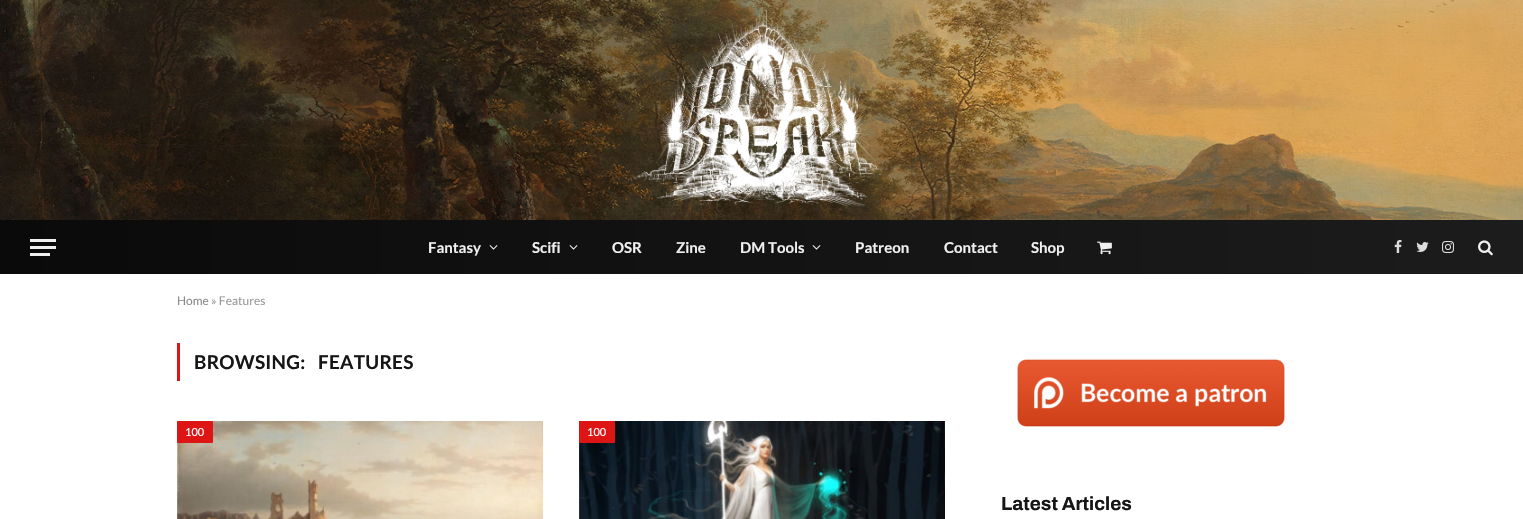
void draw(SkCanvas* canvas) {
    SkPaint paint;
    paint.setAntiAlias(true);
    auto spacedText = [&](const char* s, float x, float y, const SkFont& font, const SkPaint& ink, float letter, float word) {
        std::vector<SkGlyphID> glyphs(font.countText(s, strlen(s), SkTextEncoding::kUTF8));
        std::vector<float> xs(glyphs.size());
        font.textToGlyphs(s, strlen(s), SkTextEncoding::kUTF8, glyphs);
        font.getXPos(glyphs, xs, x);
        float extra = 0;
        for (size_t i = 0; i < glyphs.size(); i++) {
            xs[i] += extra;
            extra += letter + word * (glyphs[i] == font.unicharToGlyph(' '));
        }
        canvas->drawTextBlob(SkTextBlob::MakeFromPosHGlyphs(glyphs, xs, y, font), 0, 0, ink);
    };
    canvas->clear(0xFFFFFFFF);
    canvas->drawImageRect(SkImages::DeferredFromEncodedData(SkData::MakeFromFileName("img1.png")), SkRect::MakeXYWH(0, 0, 1523, 220), SkSamplingOptions());
    canvas->drawImageRect(SkImages::DeferredFromEncodedData(SkData::MakeFromFileName("img2.png")), SkRect::MakeXYWH(628, 10, 267, 200), SkSamplingOptions());
    {
        const SkColor colors[] = {0xFF0A0A0A, 0xFF1C1C1C};
        const float stops[] = {0, 1};
        const SkPoint ends[] = {{0, 247}, {1523, 247}};
        paint.setShader(SkGradientShader::MakeLinear(ends, colors, stops, 2, SkTileMode::kClamp));
        paint.setAlpha(255);
    }
    canvas->drawRect(SkRect::MakeXYWH(0, 220, 1523, 54), paint);
    paint.setShader(nullptr);
    paint.setColor(0xFFF0F0F0);
    canvas->drawRect(SkRect::MakeXYWH(30, 253, 20, 3), paint);
    canvas->drawRect(SkRect::MakeXYWH(30, 239, 26, 3), paint);
    canvas->drawRect(SkRect::MakeXYWH(30, 246, 26, 3), paint);
    SkFont font1(fontMgr->matchFamilyStyle("Lato", SkFontStyle::Bold()), 15);
    font1.setSubpixel(true);
    canvas->drawString("Fantasy", 428, 253, font1, paint);
    canvas->drawImageRect(SkImages::DeferredFromEncodedData(SkData::MakeFromFileName("img3.png")), SkRect::MakeXYWH(489, 245, 9, 5), SkSamplingOptions());
    canvas->drawString("Scifi", 532, 253, font1, paint);
    canvas->drawImageRect(SkImages::DeferredFromEncodedData(SkData::MakeFromFileName("img4.png")), SkRect::MakeXYWH(569, 245, 9, 5), SkSamplingOptions());
    canvas->drawString("OSR", 612, 253, font1, paint);
    canvas->drawString("Zine", 676, 253, font1, paint);
    canvas->drawString("DM Tools", 740, 253, font1, paint);
    canvas->drawImageRect(SkImages::DeferredFromEncodedData(SkData::MakeFromFileName("img5.png")), SkRect::MakeXYWH(812, 245, 9, 5), SkSamplingOptions());
    canvas->drawString("Patreon", 855, 253, font1, paint);
    canvas->drawString("Contact", 944, 253, font1, paint);
    canvas->drawString("Shop", 1031, 253, font1, paint);
    canvas->drawImageRect(SkImages::DeferredFromEncodedData(SkData::MakeFromFileName("img6.png")), SkRect::MakeXYWH(1097, 241, 15, 14), SkSamplingOptions());
    canvas->drawImageRect(SkImages::DeferredFromEncodedData(SkData::MakeFromFileName("img7.png")), SkRect::MakeXYWH(1394, 240, 8, 13), SkSamplingOptions());
    canvas->drawImageRect(SkImages::DeferredFromEncodedData(SkData::MakeFromFileName("img8.png")), SkRect::MakeXYWH(1416, 242, 13, 10), SkSamplingOptions());
    canvas->drawImageRect(SkImages::DeferredFromEncodedData(SkData::MakeFromFileName("img9.png")), SkRect::MakeXYWH(1442, 241, 12, 12), SkSamplingOptions());
    canvas->drawImageRect(SkImages::DeferredFromEncodedData(SkData::MakeFromFileName("img10.png")), SkRect::MakeXYWH(1478, 240, 15, 16), SkSamplingOptions());
    SkFont font2(fontMgr->matchFamilyStyle("Lato", SkFontStyle::Normal()), 12);
    font2.setSubpixel(true);
    paint.setColor(0xFF8A8A8A);
    canvas->drawString("Home", 177, 305, font2, paint);
    paint.setColor(0xFF999999);
    canvas->drawString("» Features", 211, 305, font2, paint);
    paint.setColor(0xFFDD1515);
    canvas->drawRect(SkRect::MakeXYWH(177, 343, 3, 38), paint);
    SkFont font3(fontMgr->matchFamilyStyle("Lato", SkFontStyle::Bold()), 19);
    font3.setSubpixel(true);
    paint.setColor(0xFF161616);
    spacedText("BROWSING:", 194, 369, font3, paint, 0.25f, 0);
    spacedText("FEATURES", 318, 369, font3, paint, 0.25f, 0);
    canvas->drawImageRect(SkImages::DeferredFromEncodedData(SkData::MakeFromFileName("img11.png")), SkRect::MakeXYWH(177, 421, 366, 98), SkSamplingOptions());
    paint.setColor(0xFFDD1515);
    canvas->drawRoundRect(SkRect::MakeXYWH(177, 421, 36, 22), 1, 1, paint);
    SkFont font4(fontMgr->matchFamilyStyle("Lato", SkFontStyle::Normal()), 11);
    font4.setSubpixel(true);
    paint.setColor(0xFFFFFFFF);
    canvas->drawString("100", 185, 436, font4, paint);
    canvas->drawImageRect(SkImages::DeferredFromEncodedData(SkData::MakeFromFileName("img12.png")), SkRect::MakeXYWH(579, 421, 366, 98), SkSamplingOptions());
    paint.setColor(0xFFDD1515);
    canvas->drawRoundRect(SkRect::MakeXYWH(579, 421, 36, 22), 1, 1, paint);
    paint.setColor(0xFFFFFFFF);
    canvas->drawString("100", 587, 436, font4, paint);
    canvas->drawImageRect(SkImages::DeferredFromEncodedData(SkData::MakeFromFileName("img13.png")), SkRect::MakeXYWH(1017, 359, 268, 68), SkSamplingOptions());
    SkFont font5(fontMgr->matchFamilyStyle("Archivo", SkFontStyle::Bold()), 19);
    font5.setSubpixel(true);
    paint.setColor(0xFF161616);
    canvas->drawString("Latest Articles", 1001, 510, font5, paint);
}
